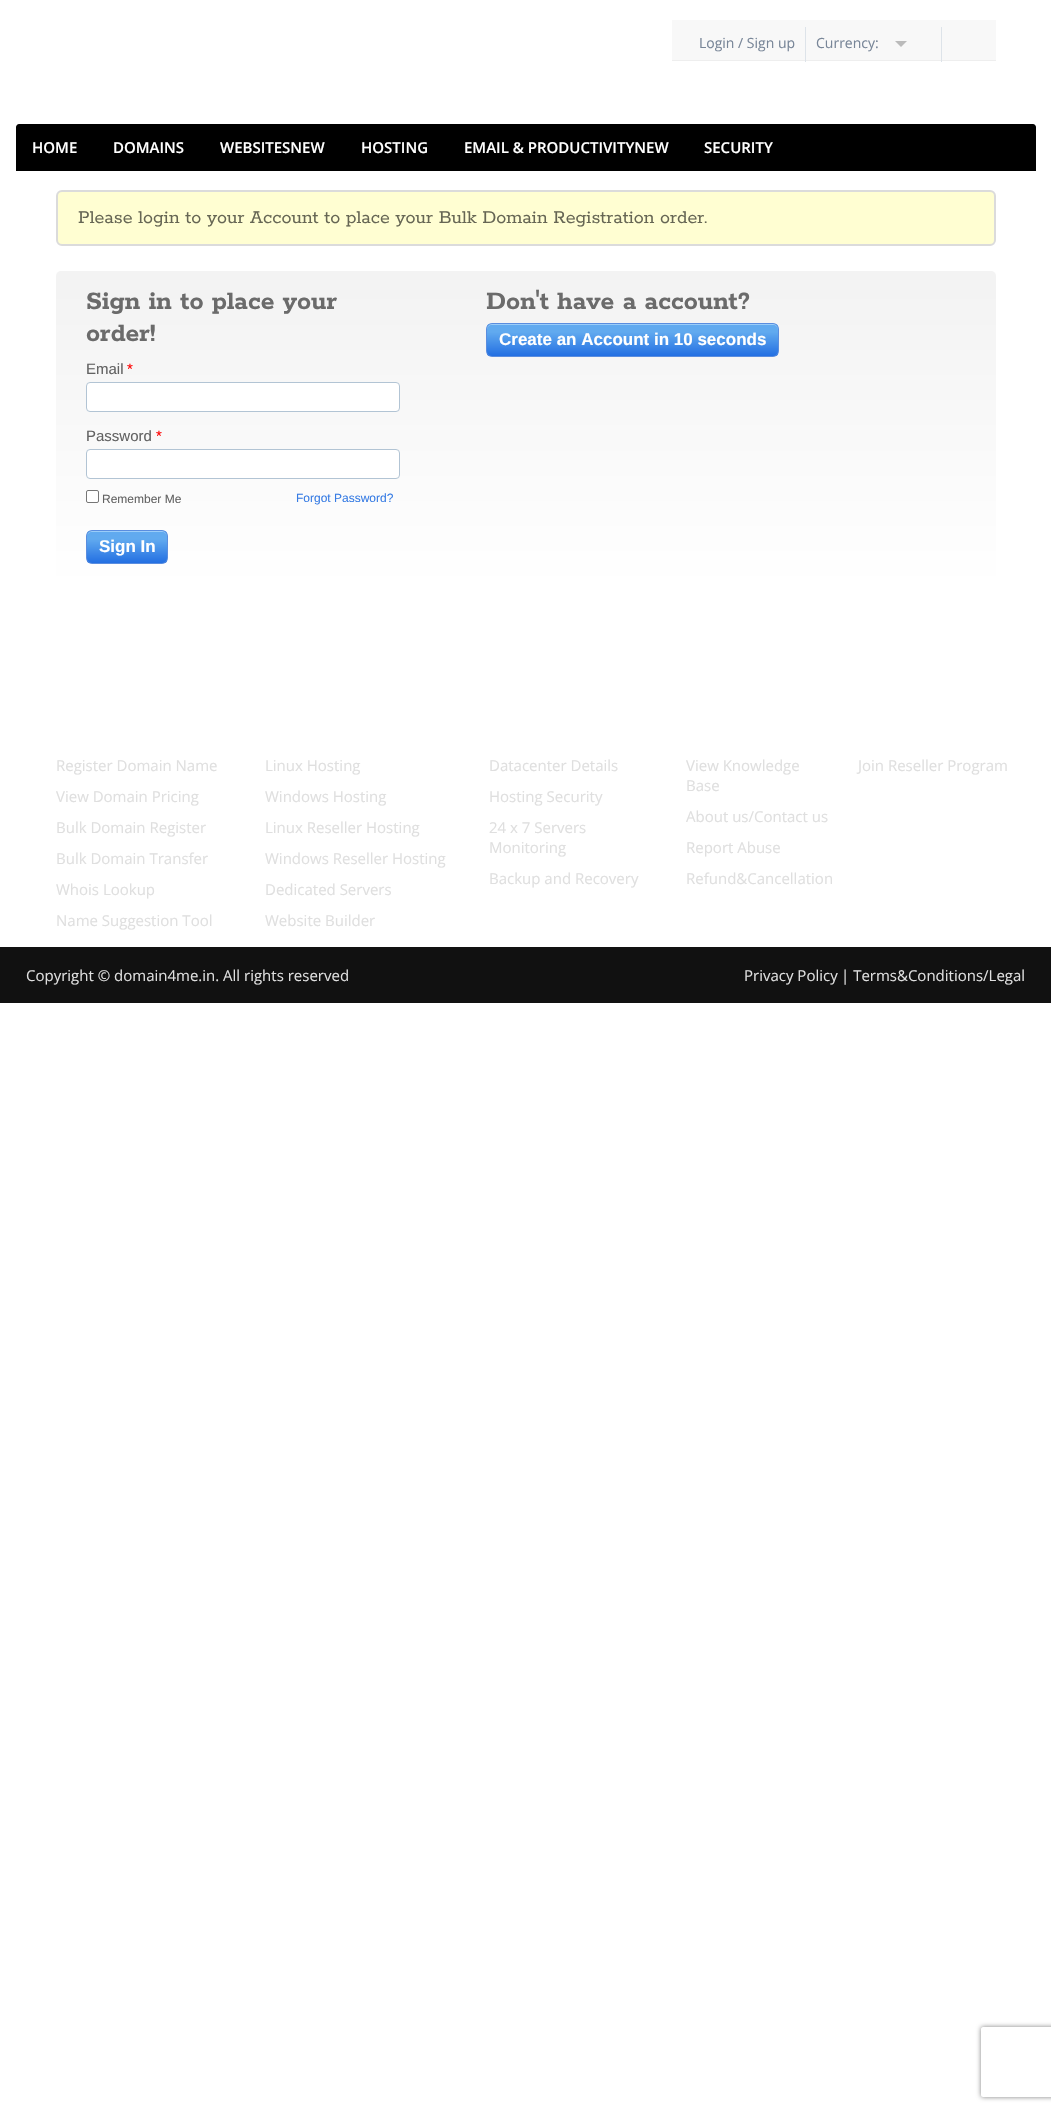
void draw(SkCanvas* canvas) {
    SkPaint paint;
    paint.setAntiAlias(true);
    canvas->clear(0xFFFFFFFF);
    paint.setColor(0xFFF8F8F8);
    canvas->drawRect(SkRect::MakeXYWH(672, 20, 324, 40), paint);
    paint.setColor(0xFFEEEEEE);
    canvas->drawRect(SkRect::MakeXYWH(672, 60, 324, 1), paint);
    paint.setColor(0xFFDDE3E9);
    canvas->drawRect(SkRect::MakeXYWH(805, 27, 1, 35), paint);
    SkFont font1(fontMgr->matchFamilyStyle("Open Sans", SkFontStyle::Normal()), 14);
    font1.setSubpixel(true);
    paint.setColor(0xFF788698);
    canvas->drawString("Login / Sign up", 699, 48, font1, paint);
    paint.setColor(0xFFDDE3E9);
    canvas->drawRect(SkRect::MakeXYWH(941, 27, 1, 35), paint);
    paint.setColor(0xFF788698);
    canvas->drawString("Currency:", 816, 48, font1, paint);
    paint.setColor(0xFFBBBBBB);
    canvas->drawPath(SkPathBuilder().moveTo(895, 41).lineTo(907, 41).lineTo(901, 47).close().detach(), paint);
    paint.setColor(0xFF000000);
    canvas->drawPath(SkPathBuilder().moveTo(19, 124).lineTo(1033, 124).cubicTo(1034.5f, 124, 1036, 125.5f, 1036, 127).lineTo(1036, 171).lineTo(16, 171).lineTo(16, 127).cubicTo(16, 125.5f, 17.5f, 124, 19, 124).close().detach(), paint);
    SkFont font2(fontMgr->matchFamilyStyle("Open Sans", SkFontStyle(600, SkFontStyle::kNormal_Width, SkFontStyle::kUpright_Slant)), 15);
    font2.setSubpixel(true);
    paint.setColor(0xFFFFFFFF);
    canvas->drawString("HOME", 32, 153, font2, paint);
    canvas->drawString("DOMAINS", 113, 153, font2, paint);
    canvas->drawString("WEBSITESNEW", 220, 153, font2, paint);
    canvas->drawString("HOSTING", 361, 153, font2, paint);
    canvas->drawString("EMAIL & PRODUCTIVITYNEW", 464, 153, font2, paint);
    canvas->drawString("SECURITY", 704, 153, font2, paint);
    paint.setColor(0xFFFFFED2);
    canvas->drawRoundRect(SkRect::MakeXYWH(57, 191, 938, 54), 5, 5, paint);
    paint.setStyle(SkPaint::kStroke_Style);
    paint.setStrokeWidth(2);
    paint.setColor(0xFFDBDBDB);
    canvas->drawRoundRect(SkRect::MakeXYWH(57, 191, 938, 54), 5, 5, paint);
    SkFont font3(fontMgr->matchFamilyStyle("Rokkitt", SkFontStyle::Normal()), 20);
    font3.setSubpixel(true);
    paint.setStyle(SkPaint::kFill_Style);
    paint.setColor(0xFF666654);
    canvas->drawString("Please login to your Account to place your Bulk Domain Registration order.", 78, 223, font3, paint);
    {
        const SkColor colors[] = {0xFFF3F3F3, 0xFFFFFFFF};
        const float stops[] = {0.05f, 1};
        const SkPoint ends[] = {{56, 271}, {56, 589}};
        paint.setShader(SkGradientShader::MakeLinear(ends, colors, stops, 2, SkTileMode::kClamp));
        paint.setAlpha(255);
    }
    canvas->drawRoundRect(SkRect::MakeXYWH(56, 271, 940, 318), 5, 5, paint);
    SkFont font4(fontMgr->matchFamilyStyle("Rokkitt", SkFontStyle::Bold()), 28);
    font4.setSubpixel(true);
    paint.setShader(nullptr);
    paint.setColor(0xFF6B6B6B);
    canvas->drawString("Sign in to place your", 86, 309, font4, paint);
    canvas->drawString("order!", 86, 341, font4, paint);
    SkFont font5(fontMgr->matchFamilyStyle("Liberation Sans", SkFontStyle::Normal()), 15);
    font5.setSubpixel(true);
    paint.setColor(0xFF626262);
    canvas->drawString("Email", 86, 374, font5, paint);
    paint.setColor(0xFFFF0000);
    canvas->drawString("*", 127, 374, font5, paint);
    paint.setColor(0xFFFFFFFF);
    canvas->drawRoundRect(SkRect::MakeXYWH(86.5f, 382.5f, 313, 29), 3.5f, 3.5f, paint);
    paint.setStyle(SkPaint::kStroke_Style);
    paint.setStrokeWidth(1);
    paint.setColor(0xFFB2C4D4);
    canvas->drawRoundRect(SkRect::MakeXYWH(86.5f, 382.5f, 313, 29), 3.5f, 3.5f, paint);
    paint.setStyle(SkPaint::kFill_Style);
    paint.setColor(0xFF626262);
    canvas->drawString("Password", 86, 441, font5, paint);
    paint.setColor(0xFFFF0000);
    canvas->drawString("*", 156, 441, font5, paint);
    paint.setColor(0xFFFFFFFF);
    canvas->drawRoundRect(SkRect::MakeXYWH(86.5f, 449.5f, 313, 29), 3.5f, 3.5f, paint);
    paint.setStyle(SkPaint::kStroke_Style);
    paint.setColor(0xFFB2C4D4);
    canvas->drawRoundRect(SkRect::MakeXYWH(86.5f, 449.5f, 313, 29), 3.5f, 3.5f, paint);
    paint.setStyle(SkPaint::kFill_Style);
    paint.setColor(0xFFFFFFFF);
    canvas->drawRoundRect(SkRect::MakeXYWH(86.5f, 490.5f, 12, 12), 1.5f, 1.5f, paint);
    paint.setStyle(SkPaint::kStroke_Style);
    paint.setColor(0xFF767676);
    canvas->drawRoundRect(SkRect::MakeXYWH(86.5f, 490.5f, 12, 12), 1.5f, 1.5f, paint);
    SkFont font6(fontMgr->matchFamilyStyle("Liberation Sans", SkFontStyle::Normal()), 12);
    font6.setSubpixel(true);
    paint.setStyle(SkPaint::kFill_Style);
    paint.setColor(0xFF626262);
    canvas->drawString("Remember Me", 102, 503, font6, paint);
    paint.setColor(0xFF377CE4);
    canvas->drawString("Forgot Password?", 296, 502, font6, paint);
    canvas->save();
    canvas->clipPath(SkPathBuilder().moveTo(92, 530).lineTo(162, 530).cubicTo(165.5f, 530, 168, 532.5f, 168, 536).lineTo(168, 558).cubicTo(168, 561.5f, 165.5f, 564, 162, 564).lineTo(92, 564).cubicTo(88.5f, 564, 86, 561.5f, 86, 558).lineTo(86, 536).cubicTo(86, 532.5f, 88.5f, 530, 92, 530).close().detach(), true);
    {
        const SkColor colors[] = {0xFF61AAEF, 0xFF61AAEF, 0xFF236FE2};
        const float stops[] = {0, 0.25f, 1};
        const SkPoint ends[] = {{127, 531}, {127, 563}};
        paint.setShader(SkGradientShader::MakeLinear(ends, colors, stops, 3, SkTileMode::kClamp));
        paint.setAlpha(255);
    }
    canvas->drawRect(SkRect::MakeXYWH(87, 531, 80, 32), paint);
    canvas->restore();
    paint.setShader(nullptr);
    paint.setColor(0xFF9ACDF9);
    canvas->drawPath(SkPathBuilder().moveTo(92, 532).lineTo(162, 532).cubicTo(165, 532, 167, 534, 167, 537).cubicTo(167, 528, 156, 531, 150, 531).lineTo(104, 531).cubicTo(98, 531, 87, 528, 87, 537).cubicTo(87, 534, 89, 532, 92, 532).close().detach(), paint);
    paint.setStyle(SkPaint::kStroke_Style);
    paint.setColor(0xFF5A8DDF);
    canvas->drawRoundRect(SkRect::MakeXYWH(86.5f, 530.5f, 81, 33), 5.5f, 5.5f, paint);
    SkFont font7(fontMgr->matchFamilyStyle("Liberation Sans", SkFontStyle::Bold()), 17);
    font7.setSubpixel(true);
    paint.setStyle(SkPaint::kFill_Style);
    paint.setColor(0xFFFFFFFF);
    canvas->drawString("Sign In", 99, 552, font7, paint);
    canvas->save();
    canvas->clipPath(SkPathBuilder(SkPathFillType::kEvenOdd).moveTo(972, 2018).lineTo(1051, 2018).lineTo(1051, 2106).lineTo(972, 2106).close().moveTo(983, 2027).lineTo(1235, 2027).cubicTo(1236, 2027, 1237, 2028, 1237, 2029).lineTo(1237, 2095).cubicTo(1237, 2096, 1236, 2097, 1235, 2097).lineTo(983, 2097).cubicTo(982, 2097, 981, 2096, 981, 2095).lineTo(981, 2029).cubicTo(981, 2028, 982, 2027, 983, 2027).close().detach(), true);
    paint.setColor(0xFF808080);
    paint.setMaskFilter(SkMaskFilter::MakeBlur(kNormal_SkBlurStyle, 2.5f));
    canvas->drawRoundRect(SkRect::MakeXYWH(981, 2027, 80, 70), 2, 2, paint);
    paint.setMaskFilter(nullptr);
    canvas->restore();
    paint.setColor(0xFF6B6B6B);
    canvas->drawString("Don't have a account?", 486, 309, font4, paint);
    canvas->save();
    canvas->clipPath(SkPathBuilder().moveTo(492, 323).lineTo(773, 323).cubicTo(776.5f, 323, 779, 325.5f, 779, 329).lineTo(779, 351).cubicTo(779, 354.5f, 776.5f, 357, 773, 357).lineTo(492, 357).cubicTo(488.5f, 357, 486, 354.5f, 486, 351).lineTo(486, 329).cubicTo(486, 325.5f, 488.5f, 323, 492, 323).close().detach(), true);
    {
        const SkColor colors[] = {0xFF61AAEF, 0xFF61AAEF, 0xFF236FE2};
        const float stops[] = {0, 0.25f, 1};
        const SkPoint ends[] = {{633, 324}, {633, 356}};
        paint.setShader(SkGradientShader::MakeLinear(ends, colors, stops, 3, SkTileMode::kClamp));
        paint.setAlpha(255);
    }
    canvas->drawRect(SkRect::MakeXYWH(487, 324, 291, 32), paint);
    canvas->restore();
    paint.setShader(nullptr);
    paint.setColor(0xFF9ACDF9);
    canvas->drawPath(SkPathBuilder().moveTo(492, 325).lineTo(773, 325).cubicTo(776, 325, 778, 327, 778, 330).lineTo(778, 329).cubicTo(778, 326, 776, 324, 773, 324).lineTo(492, 324).cubicTo(489, 324, 487, 326, 487, 329).lineTo(487, 330).cubicTo(487, 327, 489, 325, 492, 325).close().detach(), paint);
    paint.setStyle(SkPaint::kStroke_Style);
    paint.setColor(0xFF5A8DDF);
    canvas->drawRoundRect(SkRect::MakeXYWH(486.5f, 323.5f, 292, 33), 5.5f, 5.5f, paint);
    paint.setStyle(SkPaint::kFill_Style);
    paint.setColor(0xFFFFFFFF);
    canvas->drawString("Create an Account in 10 seconds", 499, 345, font7, paint);
    SkFont font8(fontMgr->matchFamilyStyle("Open Sans", SkFontStyle::Normal()), 15);
    font8.setSubpixel(true);
    paint.setColor(0xFFDFDFDF);
    canvas->drawString("Register Domain Name", 56, 771, font8, paint);
    canvas->drawString("View Domain Pricing", 56, 802, font8, paint);
    canvas->drawString("Bulk Domain Register", 56, 833, font8, paint);
    canvas->drawString("Bulk Domain Transfer", 56, 864, font8, paint);
    canvas->drawString("Whois Lookup", 56, 895, font8, paint);
    canvas->drawString("Name Suggestion Tool", 56, 926, font8, paint);
    canvas->drawString("Linux Hosting", 265, 771, font8, paint);
    canvas->drawString("Windows Hosting", 265, 802, font8, paint);
    canvas->drawString("Linux Reseller Hosting", 265, 833, font8, paint);
    canvas->drawString("Windows Reseller Hosting", 265, 864, font8, paint);
    canvas->drawString("Dedicated Servers", 265, 895, font8, paint);
    canvas->drawString("Website Builder", 265, 926, font8, paint);
    canvas->drawString("Datacenter Details", 489, 771, font8, paint);
    canvas->drawString("Hosting Security", 489, 802, font8, paint);
    canvas->drawString("24 x 7 Servers", 489, 833, font8, paint);
    canvas->drawString("Monitoring", 489, 853, font8, paint);
    canvas->drawString("Backup and Recovery", 489, 884, font8, paint);
    canvas->drawString("View Knowledge", 686, 771, font8, paint);
    canvas->drawString("Base", 686, 791, font8, paint);
    canvas->drawString("About us/Contact us", 686, 822, font8, paint);
    canvas->drawString("Report Abuse", 686, 853, font8, paint);
    canvas->drawString("Refund&Cancellation", 686, 884, font8, paint);
    canvas->drawString("Join Reseller Program", 858, 771, font8, paint);
    paint.setColor(0xFF111111);
    canvas->drawRect(SkRect::MakeXYWH(0, 947, 1051, 56), paint);
    paint.setColor(0xFFDFDFDF);
    canvas->drawString("Copyright © domain4me.in. All rights reserved", 26, 981, font8, paint);
    canvas->drawString("Privacy Policy", 744, 981, font8, paint);
    canvas->drawString("| Terms&Conditions/Legal", 841, 981, font8, paint);
}
